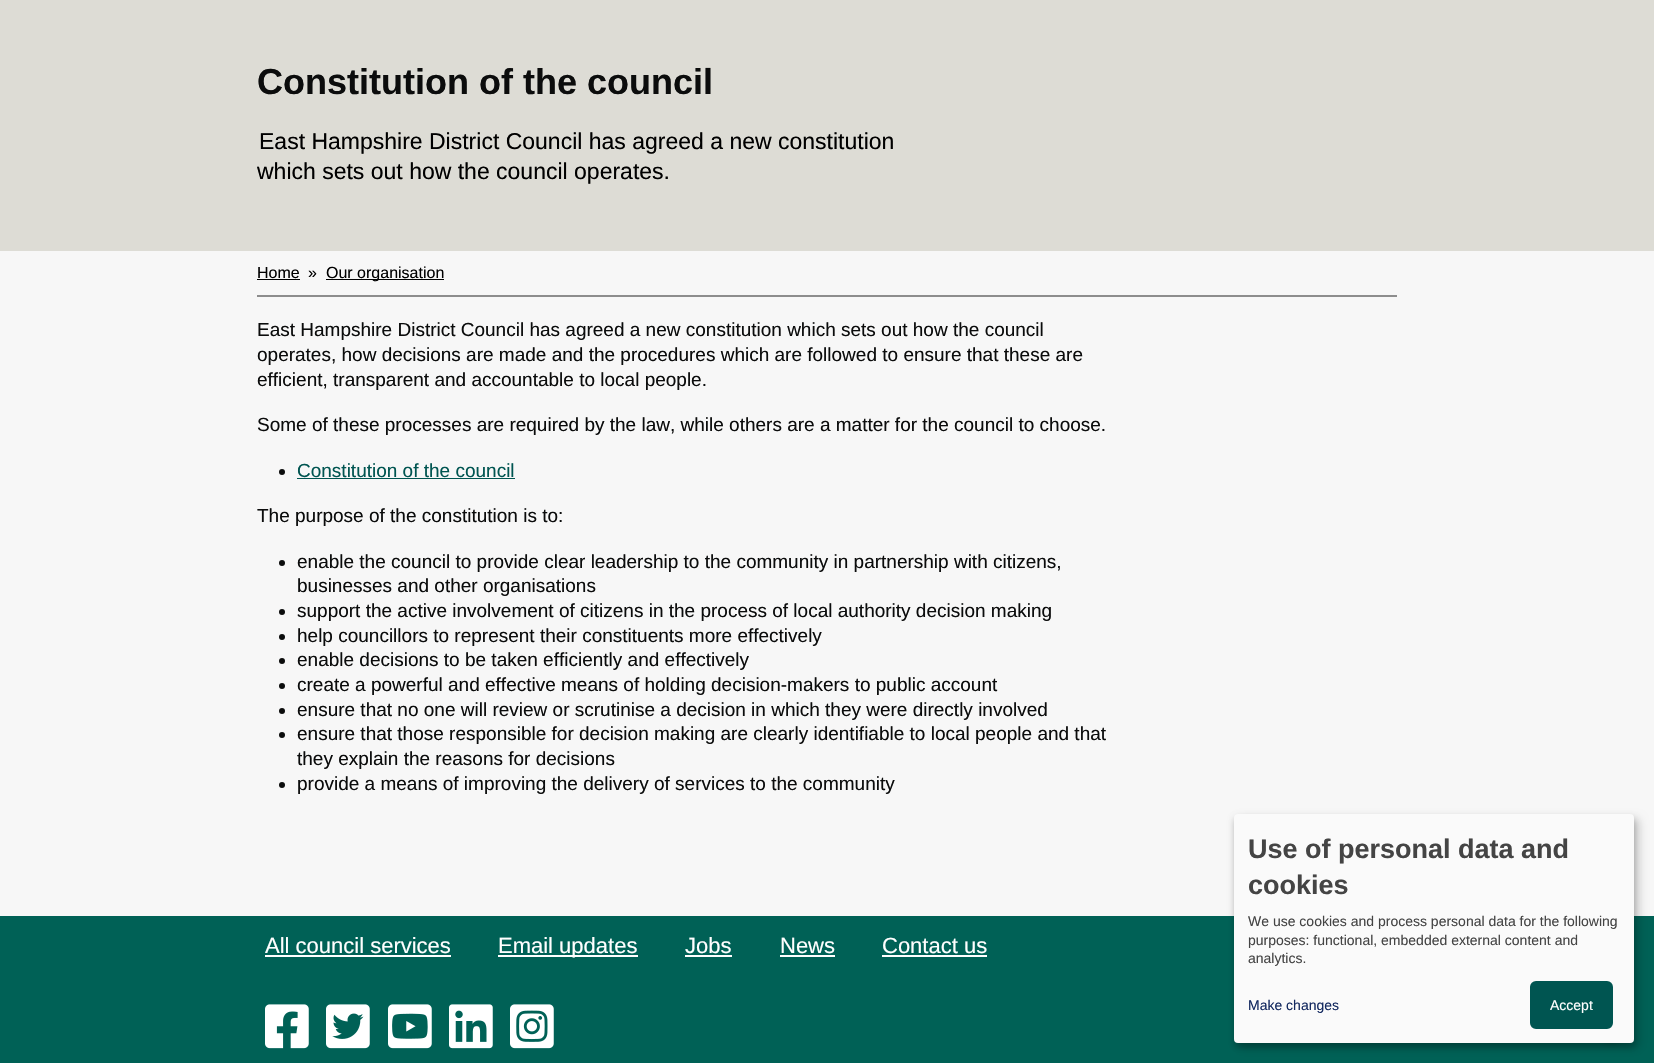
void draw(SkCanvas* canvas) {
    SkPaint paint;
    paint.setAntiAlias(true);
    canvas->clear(0xFFF7F7F7);
    paint.setColor(0xFFDDDCD5);
    canvas->drawRect(SkRect::MakeXYWH(0, 0, 1654, 251), paint);
    SkFont font1(fontMgr->matchFamilyStyle("Liberation Sans", SkFontStyle::Bold()), 36);
    font1.setSubpixel(true);
    paint.setColor(0xFF0B0C0C);
    canvas->drawString("Constitution of the council", 257, 94, font1, paint);
    SkFont font2(fontMgr->matchFamilyStyle("Liberation Sans", SkFontStyle::Normal()), 23);
    font2.setSubpixel(true);
    paint.setColor(0xFF000000);
    canvas->drawString("East Hampshire District Council has agreed a new constitution", 259, 149, font2, paint);
    canvas->drawString("which sets out how the council operates.", 257, 179, font2, paint);
    paint.setColor(0xFF8D8D8D);
    canvas->drawRect(SkRect::MakeXYWH(257, 295, 1140, 2), paint);
    SkFont font3(fontMgr->matchFamilyStyle("Liberation Sans", SkFontStyle::Normal()), 16);
    font3.setSubpixel(true);
    paint.setColor(0xFF000000);
    canvas->drawString("Home", 257, 278, font3, paint);
    canvas->drawRect(SkRect::MakeXYWH(257, 279, 43, 1), paint);
    canvas->drawString("»", 308, 278, font3, paint);
    canvas->drawRect(SkRect::MakeXYWH(326, 279, 118, 1), paint);
    canvas->drawString("Our organisation", 326, 278, font3, paint);
    SkFont font4(fontMgr->matchFamilyStyle("Liberation Sans", SkFontStyle::Normal()), 19);
    font4.setSubpixel(true);
    paint.setColor(0xFF0B0C0C);
    canvas->drawString("East Hampshire District Council has agreed a new constitution which sets out how the council", 257, 336, font4, paint);
    canvas->drawString("operates, how decisions are made and the procedures which are followed to ensure that these are", 257, 361, font4, paint);
    canvas->drawString("efficient, transparent and accountable to local people.", 257, 386, font4, paint);
    canvas->drawString("Some of these processes are required by the law, while others are a matter for the council to choose.", 257, 431, font4, paint);
    canvas->drawCircle(282, 472, 3, paint);
    paint.setColor(0xFF005551);
    canvas->drawString("Constitution of the council", 297, 477, font4, paint);
    canvas->drawRect(SkRect::MakeXYWH(297, 478, 218, 1), paint);
    paint.setColor(0xFF0B0C0C);
    canvas->drawString("The purpose of the constitution is to:", 257, 522, font4, paint);
    canvas->drawCircle(282, 563, 3, paint);
    canvas->drawString("enable the council to provide clear leadership to the community in partnership with citizens,", 297, 568, font4, paint);
    canvas->drawString("businesses and other organisations", 297, 592, font4, paint);
    canvas->drawCircle(282, 612, 3, paint);
    canvas->drawString("support the active involvement of citizens in the process of local authority decision making", 297, 617, font4, paint);
    canvas->drawCircle(282, 637, 3, paint);
    canvas->drawString("help councillors to represent their constituents more effectively", 297, 642, font4, paint);
    canvas->drawCircle(282, 661, 3, paint);
    canvas->drawString("enable decisions to be taken efficiently and effectively", 297, 666, font4, paint);
    canvas->drawCircle(282, 686, 3, paint);
    canvas->drawString("create a powerful and effective means of holding decision-makers to public account", 297, 691, font4, paint);
    canvas->drawCircle(282, 711, 3, paint);
    canvas->drawString("ensure that no one will review or scrutinise a decision in which they were directly involved", 297, 716, font4, paint);
    canvas->drawCircle(282, 735, 3, paint);
    canvas->drawString("ensure that those responsible for decision making are clearly identifiable to local people and that", 297, 740, font4, paint);
    canvas->drawString("they explain the reasons for decisions", 297, 765, font4, paint);
    canvas->drawCircle(282, 785, 3, paint);
    canvas->drawString("provide a means of improving the delivery of services to the community", 297, 790, font4, paint);
    paint.setColor(0xFF006156);
    canvas->drawRect(SkRect::MakeXYWH(0, 916, 1654, 147), paint);
    SkFont font5(fontMgr->matchFamilyStyle("Liberation Sans", SkFontStyle::Normal()), 22);
    font5.setSubpixel(true);
    paint.setColor(0xFFFFFFFF);
    canvas->drawString("All council services", 265, 953, font5, paint);
    canvas->drawRect(SkRect::MakeXYWH(265, 955, 186, 2), paint);
    canvas->drawRect(SkRect::MakeXYWH(498, 955, 140, 2), paint);
    canvas->drawString("Email updates", 498, 953, font5, paint);
    canvas->drawString("Jobs", 685, 953, font5, paint);
    canvas->drawRect(SkRect::MakeXYWH(685, 955, 47, 2), paint);
    canvas->drawString("News", 780, 953, font5, paint);
    canvas->drawRect(SkRect::MakeXYWH(780, 955, 55, 2), paint);
    canvas->drawString("Contact us", 882, 953, font5, paint);
    canvas->drawRect(SkRect::MakeXYWH(882, 955, 105, 2), paint);
    canvas->drawImageRect(SkImages::DeferredFromEncodedData(SkData::MakeFromFileName("img1.png")), SkRect::MakeXYWH(265, 1004, 44, 45), SkSamplingOptions());
    canvas->drawImageRect(SkImages::DeferredFromEncodedData(SkData::MakeFromFileName("img2.png")), SkRect::MakeXYWH(326, 1004, 44, 45), SkSamplingOptions());
    canvas->drawImageRect(SkImages::DeferredFromEncodedData(SkData::MakeFromFileName("img3.png")), SkRect::MakeXYWH(388, 1004, 44, 45), SkSamplingOptions());
    canvas->drawImageRect(SkImages::DeferredFromEncodedData(SkData::MakeFromFileName("img4.png")), SkRect::MakeXYWH(449, 1004, 44, 45), SkSamplingOptions());
    canvas->drawImageRect(SkImages::DeferredFromEncodedData(SkData::MakeFromFileName("img5.png")), SkRect::MakeXYWH(510, 1004, 44, 45), SkSamplingOptions());
    paint.setColor(0x30000000);
    paint.setMaskFilter(SkMaskFilter::MakeBlur(kNormal_SkBlurStyle, 5));
    canvas->drawRoundRect(SkRect::MakeXYWH(1239, 819, 400, 229), 4, 4, paint);
    paint.setMaskFilter(nullptr);
    paint.setColor(0x33000000);
    paint.setMaskFilter(SkMaskFilter::MakeBlur(kNormal_SkBlurStyle, 3));
    canvas->drawRoundRect(SkRect::MakeXYWH(1234, 818, 400, 229), 4, 4, paint);
    paint.setMaskFilter(nullptr);
    paint.setMaskFilter(SkMaskFilter::MakeBlur(kNormal_SkBlurStyle, 2.5f));
    canvas->drawRoundRect(SkRect::MakeXYWH(1594, 1008, 35, 35), 17.5f, 17.5f, paint);
    paint.setMaskFilter(nullptr);
    paint.setColor(0xFFFAFAFA);
    canvas->drawRoundRect(SkRect::MakeXYWH(1234, 814, 400, 229), 4, 4, paint);
    SkFont font6(fontMgr->matchFamilyStyle("Liberation Sans", SkFontStyle::Bold()), 27);
    font6.setSubpixel(true);
    paint.setColor(0xFF444444);
    canvas->drawString("Use of personal data and", 1248, 858, font6, paint);
    canvas->drawString("cookies", 1248, 894, font6, paint);
    SkFont font7(fontMgr->matchFamilyStyle("Liberation Sans", SkFontStyle::Normal()), 14);
    font7.setSubpixel(true);
    canvas->drawString("We use cookies and process personal data for the following", 1248, 926, font7, paint);
    canvas->drawString("purposes: functional, embedded external content and", 1248, 945, font7, paint);
    canvas->drawString("analytics.", 1248, 963, font7, paint);
    paint.setColor(0xFF12285F);
    canvas->drawString("Make changes", 1248, 1010, font7, paint);
    paint.setColor(0xFF005551);
    canvas->drawRoundRect(SkRect::MakeXYWH(1531.5f, 982.5f, 80, 45), 4.5f, 4.5f, paint);
    paint.setStyle(SkPaint::kStroke_Style);
    paint.setStrokeWidth(3);
    canvas->drawRoundRect(SkRect::MakeXYWH(1531.5f, 982.5f, 80, 45), 4.5f, 4.5f, paint);
    paint.setStyle(SkPaint::kFill_Style);
    paint.setColor(0xFFFFFFFF);
    canvas->drawString("Accept", 1550, 1010, font7, paint);
}
